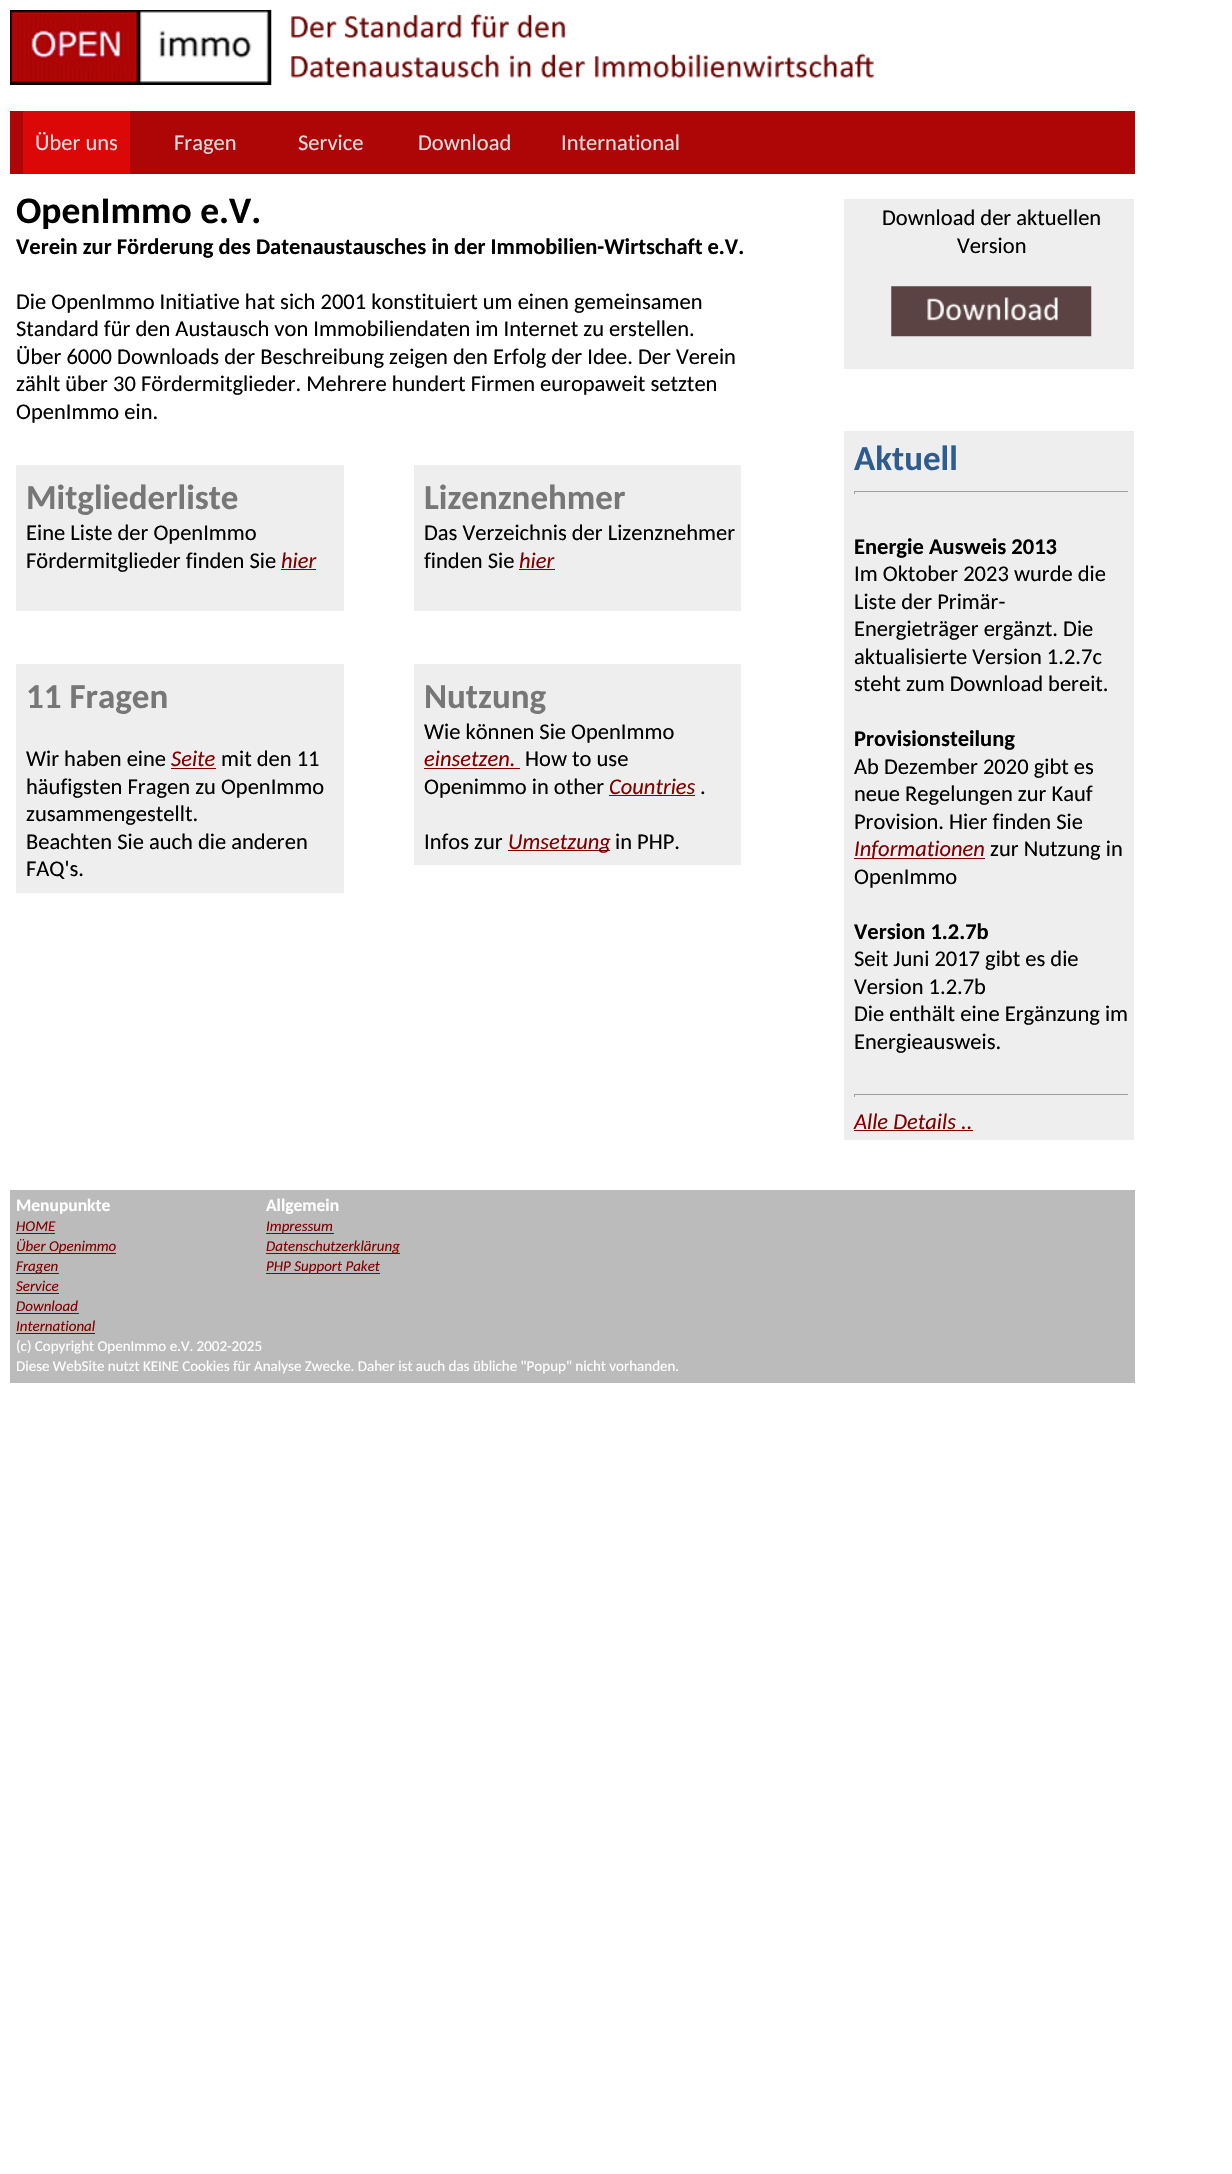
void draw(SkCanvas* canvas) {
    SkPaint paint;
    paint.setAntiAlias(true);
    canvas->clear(0xFFFFFFFF);
    canvas->drawImageRect(SkImages::DeferredFromEncodedData(SkData::MakeFromFileName("img1.png")), SkRect::MakeXYWH(10, 10, 262, 75), SkSamplingOptions());
    canvas->drawImageRect(SkImages::DeferredFromEncodedData(SkData::MakeFromFileName("img2.png")), SkRect::MakeXYWH(291, 13, 583, 65), SkSamplingOptions());
    paint.setColor(0xFFAE0606);
    canvas->drawRect(SkRect::MakeXYWH(10, 111, 1125, 63), paint);
    paint.setColor(0xFFDC0707);
    canvas->drawRect(SkRect::MakeXYWH(23, 111, 107, 63), paint);
    SkFont font1(fontMgr->matchFamilyStyle("Carlito", SkFontStyle::Normal()), 22.5f);
    font1.setSubpixel(true);
    paint.setColor(0xFFDDDDDD);
    canvas->drawString("Über uns", 35, 150, font1, paint);
    canvas->drawString("Fragen", 174, 150, font1, paint);
    canvas->drawString("Service", 298, 150, font1, paint);
    canvas->drawString("Download", 418, 150, font1, paint);
    canvas->drawString("International", 561, 150, font1, paint);
    SkFont font2(fontMgr->matchFamilyStyle("Carlito", SkFontStyle::Bold()), 37.5f);
    font2.setSubpixel(true);
    paint.setColor(0xFF000000);
    canvas->drawString("OpenImmo e.V.", 16, 223, font2, paint);
    SkFont font3(fontMgr->matchFamilyStyle("Carlito", SkFontStyle::Bold()), 22.5f);
    font3.setSubpixel(true);
    canvas->drawString("Verein zur Förderung des Datenaustausches in der Immobilien-Wirtschaft e.V.", 16, 254, font3, paint);
    canvas->drawString("Die OpenImmo Initiative hat sich 2001 konstituiert um einen gemeinsamen", 16, 309, font1, paint);
    canvas->drawString("Standard für den Austausch von Immobiliendaten im Internet zu erstellen.", 16, 336, font1, paint);
    canvas->drawString("Über 6000 Downloads der Beschreibung zeigen den Erfolg der Idee. Der Verein", 16, 364, font1, paint);
    canvas->drawString("zählt über 30 Fördermitglieder. Mehrere hundert Firmen europaweit setzten", 16, 391, font1, paint);
    canvas->drawString("OpenImmo ein.", 16, 419, font1, paint);
    paint.setColor(0xFFEEEEEE);
    canvas->drawRect(SkRect::MakeXYWH(16, 465, 328, 146), paint);
    SkFont font4(fontMgr->matchFamilyStyle("Carlito", SkFontStyle::Bold()), 35);
    font4.setSubpixel(true);
    paint.setColor(0xFF777777);
    canvas->drawString("Mitgliederliste", 26, 509, font4, paint);
    paint.setColor(0xFF000000);
    canvas->drawString("Eine Liste der OpenImmo", 26, 540, font1, paint);
    canvas->drawString("Fördermitglieder finden Sie", 26, 568, font1, paint);
    SkFont font5(fontMgr->matchFamilyStyle("Carlito", SkFontStyle::Italic()), 22.5f);
    font5.setSubpixel(true);
    paint.setColor(0xFF800000);
    canvas->drawString("hier", 281, 568, font5, paint);
    canvas->drawRect(SkRect::MakeXYWH(281, 569, 35, 1), paint);
    paint.setColor(0xFFEEEEEE);
    canvas->drawRect(SkRect::MakeXYWH(414, 465, 327, 146), paint);
    paint.setColor(0xFF777777);
    canvas->drawString("Lizenznehmer", 424, 509, font4, paint);
    paint.setColor(0xFF000000);
    canvas->drawString("Das Verzeichnis der Lizenznehmer", 424, 540, font1, paint);
    canvas->drawString("finden Sie", 424, 568, font1, paint);
    paint.setColor(0xFF800000);
    canvas->drawString("hier", 519, 568, font5, paint);
    canvas->drawRect(SkRect::MakeXYWH(519, 569, 36, 1), paint);
    paint.setColor(0xFFEEEEEE);
    canvas->drawRect(SkRect::MakeXYWH(16, 664, 328, 229), paint);
    paint.setColor(0xFF777777);
    canvas->drawString("11 Fragen", 26, 708, font4, paint);
    paint.setColor(0xFF000000);
    canvas->drawString("Wir haben eine", 26, 766, font1, paint);
    paint.setColor(0xFF800000);
    canvas->drawString("Seite", 171, 766, font5, paint);
    canvas->drawRect(SkRect::MakeXYWH(171, 768, 45, 1), paint);
    paint.setColor(0xFF000000);
    canvas->drawString("mit den 11", 221, 766, font1, paint);
    canvas->drawString("häufigsten Fragen zu OpenImmo", 26, 794, font1, paint);
    canvas->drawString("zusammengestellt.", 26, 821, font1, paint);
    canvas->drawString("Beachten Sie auch die anderen", 26, 849, font1, paint);
    canvas->drawString("FAQ's.", 26, 876, font1, paint);
    paint.setColor(0xFFEEEEEE);
    canvas->drawRect(SkRect::MakeXYWH(414, 664, 327, 201), paint);
    paint.setColor(0xFF777777);
    canvas->drawString("Nutzung", 424, 708, font4, paint);
    paint.setColor(0xFF000000);
    canvas->drawString("Wie können Sie OpenImmo", 424, 739, font1, paint);
    paint.setColor(0xFF800000);
    canvas->drawString("einsetzen.", 424, 766, font5, paint);
    canvas->drawRect(SkRect::MakeXYWH(424, 768, 96, 1), paint);
    paint.setColor(0xFF000000);
    canvas->drawString("How to use", 525, 766, font1, paint);
    canvas->drawString("Openimmo in other", 424, 794, font1, paint);
    paint.setColor(0xFF800000);
    canvas->drawString("Countries", 609, 794, font5, paint);
    canvas->drawRect(SkRect::MakeXYWH(609, 795, 86, 1), paint);
    paint.setColor(0xFF000000);
    canvas->drawString(".", 700, 794, font1, paint);
    canvas->drawString("Infos zur", 424, 849, font1, paint);
    paint.setColor(0xFF800000);
    canvas->drawRect(SkRect::MakeXYWH(508, 850, 102, 1), paint);
    canvas->drawString("Umsetzung", 508, 849, font5, paint);
    paint.setColor(0xFF000000);
    canvas->drawString("in PHP.", 615, 849, font1, paint);
    paint.setColor(0xFFEEEEEE);
    canvas->drawRect(SkRect::MakeXYWH(844, 199, 290, 170), paint);
    paint.setColor(0xFF000000);
    canvas->drawString("Download der aktuellen", 882, 225, font1, paint);
    canvas->drawString("Version", 957, 253, font1, paint);
    canvas->drawImageRect(SkImages::DeferredFromEncodedData(SkData::MakeFromFileName("img3.png")), SkRect::MakeXYWH(891, 286, 201, 51), SkSamplingOptions());
    paint.setColor(0xFFEEEEEE);
    canvas->drawRect(SkRect::MakeXYWH(844, 431, 290, 709), paint);
    paint.setColor(0xFF2F5C8F);
    canvas->drawString("Aktuell", 854, 470, font4, paint);
    paint.setColor(0xFF9F9F9F);
    canvas->drawRect(SkRect::MakeXYWH(854, 491, 275, 1), paint);
    paint.setColor(0xFFEEEEEE);
    canvas->drawRect(SkRect::MakeXYWH(1128, 491, 1, 3), paint);
    paint.setColor(0xFF9F9F9F);
    canvas->drawRect(SkRect::MakeXYWH(854, 491, 1, 3), paint);
    paint.setColor(0xFF000000);
    canvas->drawString("Energie Ausweis 2013", 854, 554, font3, paint);
    canvas->drawString("Im Oktober 2023 wurde die", 854, 581, font1, paint);
    canvas->drawString("Liste der Primär-", 854, 609, font1, paint);
    canvas->drawString("Energieträger ergänzt. Die", 854, 636, font1, paint);
    canvas->drawString("aktualisierte Version 1.2.7c", 854, 664, font1, paint);
    canvas->drawString("steht zum Download bereit.", 854, 691, font1, paint);
    canvas->drawString("Provisionsteilung", 854, 746, font3, paint);
    canvas->drawString("Ab Dezember 2020 gibt es", 854, 774, font1, paint);
    canvas->drawString("neue Regelungen zur Kauf", 854, 801, font1, paint);
    canvas->drawString("Provision. Hier finden Sie", 854, 829, font1, paint);
    paint.setColor(0xFF800000);
    canvas->drawRect(SkRect::MakeXYWH(854, 858, 131, 1), paint);
    canvas->drawString("Informationen", 854, 856, font5, paint);
    paint.setColor(0xFF000000);
    canvas->drawString("zur Nutzung in", 990, 856, font1, paint);
    canvas->drawString("OpenImmo", 854, 884, font1, paint);
    canvas->drawString("Version 1.2.7b", 854, 939, font3, paint);
    canvas->drawString("Seit Juni 2017 gibt es die", 854, 966, font1, paint);
    canvas->drawString("Version 1.2.7b", 854, 994, font1, paint);
    canvas->drawString("Die enthält eine Ergänzung im", 854, 1021, font1, paint);
    canvas->drawString("Energieausweis.", 854, 1049, font1, paint);
    paint.setColor(0xFF9F9F9F);
    canvas->drawRect(SkRect::MakeXYWH(854, 1094, 275, 1), paint);
    paint.setColor(0xFFEEEEEE);
    canvas->drawRect(SkRect::MakeXYWH(1128, 1094, 1, 3), paint);
    paint.setColor(0xFF9F9F9F);
    canvas->drawRect(SkRect::MakeXYWH(854, 1094, 1, 3), paint);
    paint.setColor(0xFF800000);
    canvas->drawString("Alle Details ..", 854, 1129, font5, paint);
    canvas->drawRect(SkRect::MakeXYWH(854, 1130, 119, 1), paint);
    paint.setColor(0xFFBBBBBB);
    canvas->drawRect(SkRect::MakeXYWH(10, 1190, 1125, 193), paint);
    SkFont font6(fontMgr->matchFamilyStyle("Carlito", SkFontStyle::Bold()), 17.5f);
    font6.setSubpixel(true);
    paint.setColor(0xFFFFFFFF);
    canvas->drawString("Menupunkte", 16, 1211, font6, paint);
    SkFont font7(fontMgr->matchFamilyStyle("Carlito", SkFontStyle::Italic()), 15);
    font7.setSubpixel(true);
    paint.setColor(0xFF800000);
    canvas->drawString("HOME", 16, 1231, font7, paint);
    canvas->drawRect(SkRect::MakeXYWH(16, 1233, 39, 1), paint);
    canvas->drawRect(SkRect::MakeXYWH(16, 1253, 100, 1), paint);
    canvas->drawString("Über Openimmo", 16, 1251, font7, paint);
    canvas->drawRect(SkRect::MakeXYWH(16, 1273, 43, 1), paint);
    canvas->drawString("Fragen", 16, 1271, font7, paint);
    canvas->drawString("Service", 16, 1291, font7, paint);
    canvas->drawRect(SkRect::MakeXYWH(16, 1293, 43, 1), paint);
    canvas->drawString("Download", 16, 1311, font7, paint);
    canvas->drawRect(SkRect::MakeXYWH(16, 1313, 63, 1), paint);
    canvas->drawString("International", 16, 1331, font7, paint);
    canvas->drawRect(SkRect::MakeXYWH(16, 1333, 79, 1), paint);
    paint.setColor(0xFFFFFFFF);
    canvas->drawString("Allgemein", 266, 1211, font6, paint);
    paint.setColor(0xFF800000);
    canvas->drawRect(SkRect::MakeXYWH(266, 1233, 68, 1), paint);
    canvas->drawString("Impressum", 266, 1231, font7, paint);
    canvas->drawRect(SkRect::MakeXYWH(266, 1253, 134, 1), paint);
    canvas->drawString("Datenschutzerklärung", 266, 1251, font7, paint);
    canvas->drawRect(SkRect::MakeXYWH(266, 1273, 114, 1), paint);
    canvas->drawString("PHP Support Paket", 266, 1271, font7, paint);
    SkFont font8(fontMgr->matchFamilyStyle("Carlito", SkFontStyle::Normal()), 15);
    font8.setSubpixel(true);
    paint.setColor(0xFFFFFFFF);
    canvas->drawString("(c) Copyright OpenImmo e.V. 2002-2025", 16, 1351, font8, paint);
    canvas->drawString("Diese WebSite nutzt KEINE Cookies für Analyse Zwecke. Daher ist auch das übliche \"Popup\" nicht vorhanden.", 16, 1371, font8, paint);
}
